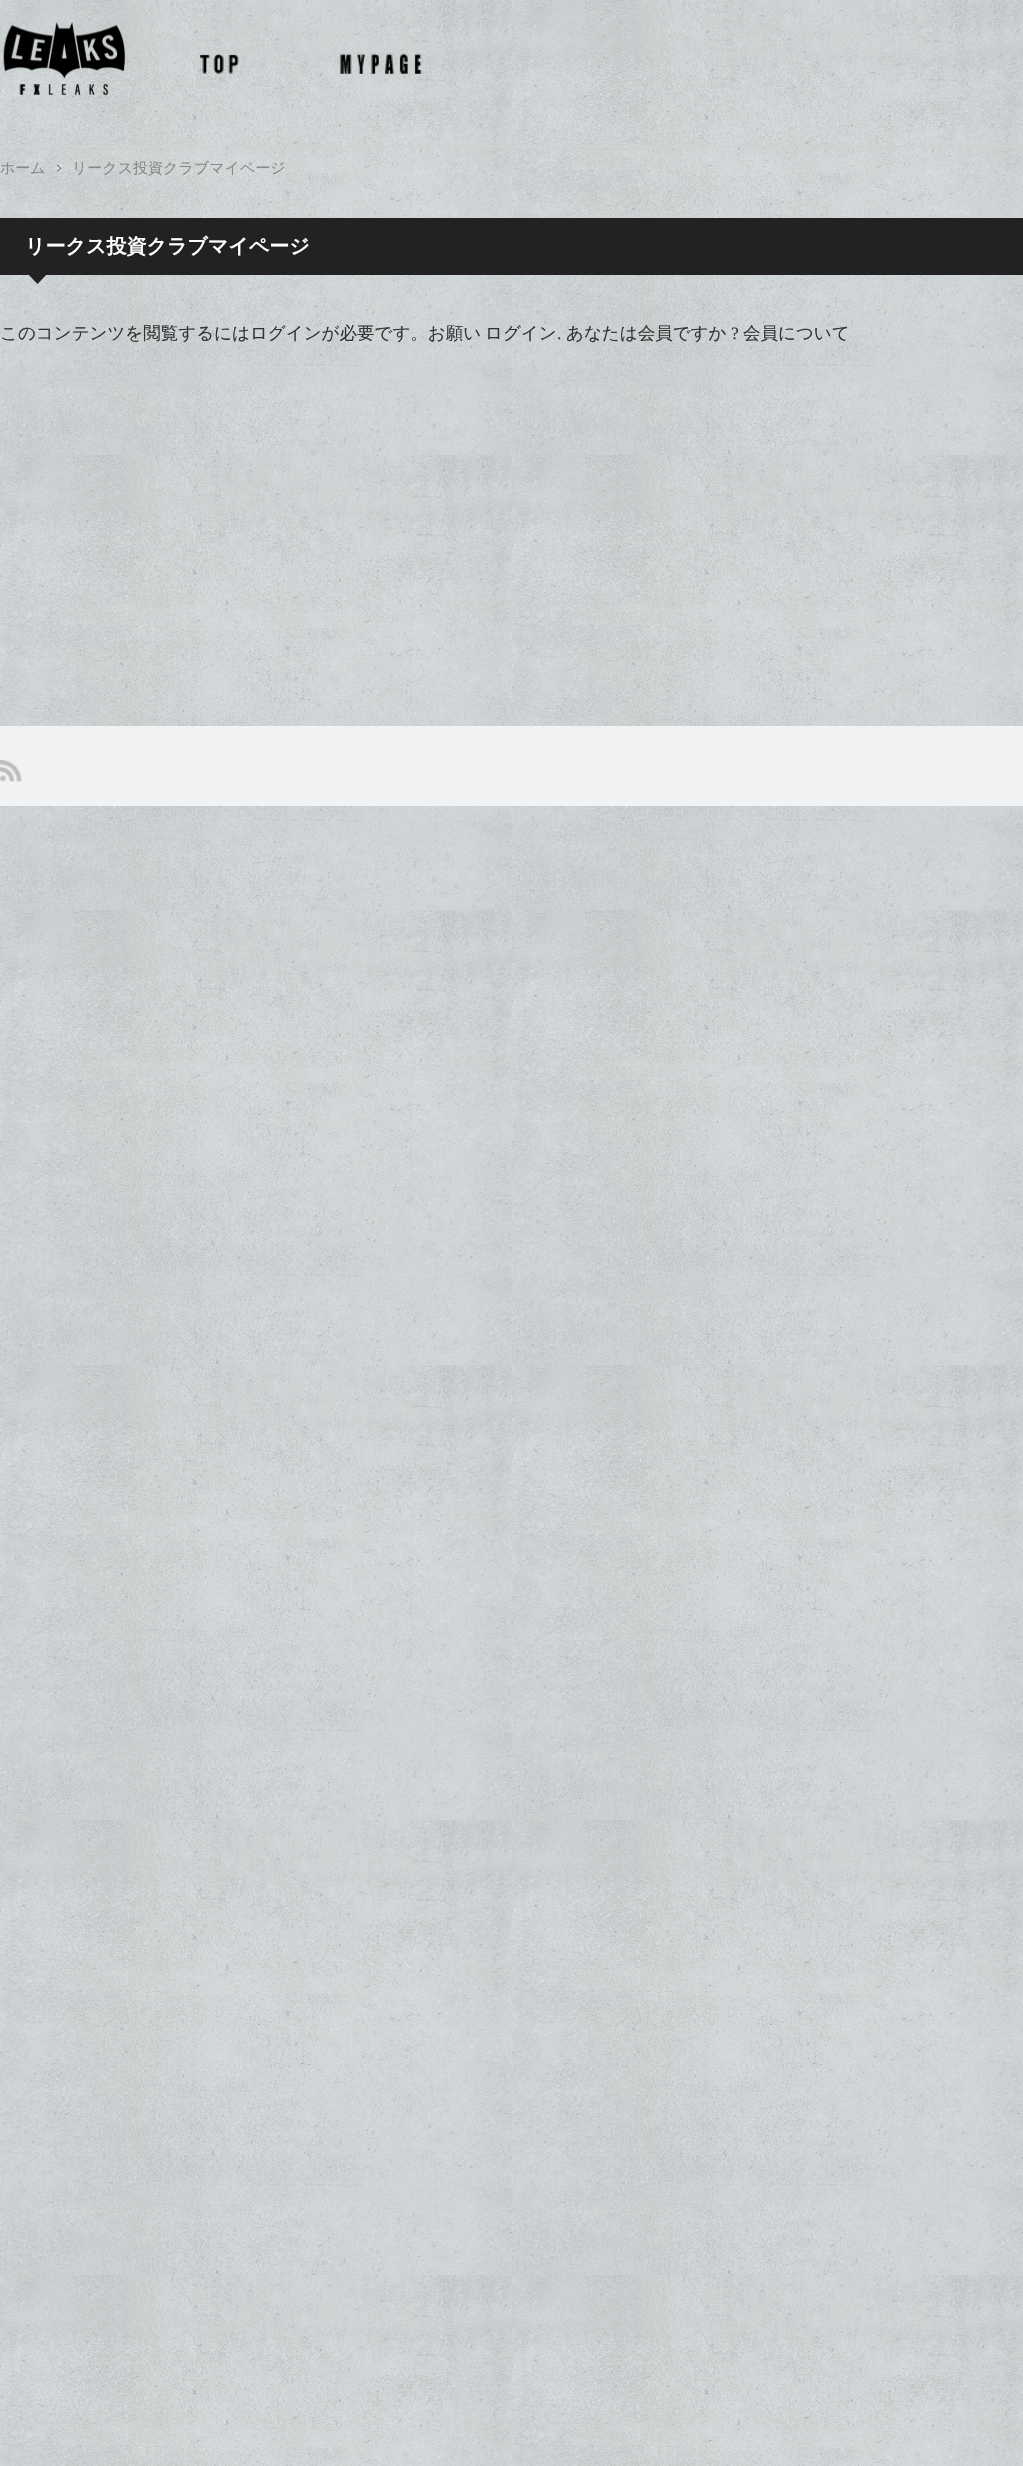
void draw(SkCanvas* canvas) {
    SkPaint paint;
    paint.setAntiAlias(true);
    canvas->clear(0xFFFFFFFF);
    canvas->drawImageRect(SkImages::DeferredFromEncodedData(SkData::MakeFromFileName("img1.png")), SkRect::MakeXYWH(0, 0, 1023, 2466), SkSamplingOptions());
    canvas->drawImageRect(SkImages::DeferredFromEncodedData(SkData::MakeFromFileName("img2.png")), SkRect::MakeXYWH(3, 22, 122, 73), SkSamplingOptions());
    canvas->drawImageRect(SkImages::DeferredFromEncodedData(SkData::MakeFromFileName("img3.png")), SkRect::MakeXYWH(200, 53, 39, 21), SkSamplingOptions());
    canvas->drawImageRect(SkImages::DeferredFromEncodedData(SkData::MakeFromFileName("img4.png")), SkRect::MakeXYWH(339, 53, 83, 21), SkSamplingOptions());
    paint.setColor(0xE8D1D1D2);
    canvas->drawRect(SkRect::MakeXYWH(0, 145, 1023, 3), paint);
    SkFont font1(fontMgr->matchFamilyStyle("WenQuanYi Zen Hei", SkFontStyle(500, SkFontStyle::kNormal_Width, SkFontStyle::kUpright_Slant)), 15);
    font1.setSubpixel(true);
    paint.setColor(0xFF888888);
    canvas->drawString("ホーム", 0, 173, font1, paint);
    canvas->drawImageRect(SkImages::DeferredFromEncodedData(SkData::MakeFromFileName("img5.png")), SkRect::MakeXYWH(57, 165, 5, 7), SkSamplingOptions());
    canvas->drawString("リークス投資クラブマイページ", 72, 173, font1, paint);
    paint.setColor(0xFF222222);
    canvas->drawRect(SkRect::MakeXYWH(0, 218, 1023, 57), paint);
    SkFont font2(fontMgr->matchFamilyStyle("WenQuanYi Zen Hei", SkFontStyle::Bold()), 20);
    font2.setSubpixel(true);
    paint.setColor(0xFFFFFFFF);
    canvas->drawString("リークス投資クラブマイページ", 25, 253, font2, paint);
    paint.setColor(0xFF222222);
    canvas->drawPath(SkPathBuilder().moveTo(25, 271).lineTo(50, 271).lineTo(37.5f, 284).close().detach(), paint);
    SkFont font3(fontMgr->matchFamilyStyle("WenQuanYi Zen Hei", SkFontStyle(500, SkFontStyle::kNormal_Width, SkFontStyle::kUpright_Slant)), 17.5f);
    font3.setSubpixel(true);
    paint.setColor(0xFF333333);
    canvas->drawString("このコンテンツを閲覧するにはログインが必要です。お願い", 0, 339, font3, paint);
    canvas->drawString("ログイン", 485, 339, font3, paint);
    SkFont font4(fontMgr->matchFamilyStyle("Liberation Serif", SkFontStyle::Normal()), 17.5f);
    font4.setSubpixel(true);
    canvas->drawString(".", 557, 339, font4, paint);
    canvas->drawString("あなたは会員ですか", 566, 339, font3, paint);
    canvas->drawString("?", 731, 339, font4, paint);
    canvas->drawString("会員について", 743, 339, font3, paint);
    paint.setColor(0xFFF1F2F4);
    canvas->drawRect(SkRect::MakeXYWH(0, 726, 1023, 80), paint);
    canvas->drawImageRect(SkImages::DeferredFromEncodedData(SkData::MakeFromFileName("img6.png")), SkRect::MakeXYWH(0, 760, 22, 22), SkSamplingOptions());
}
